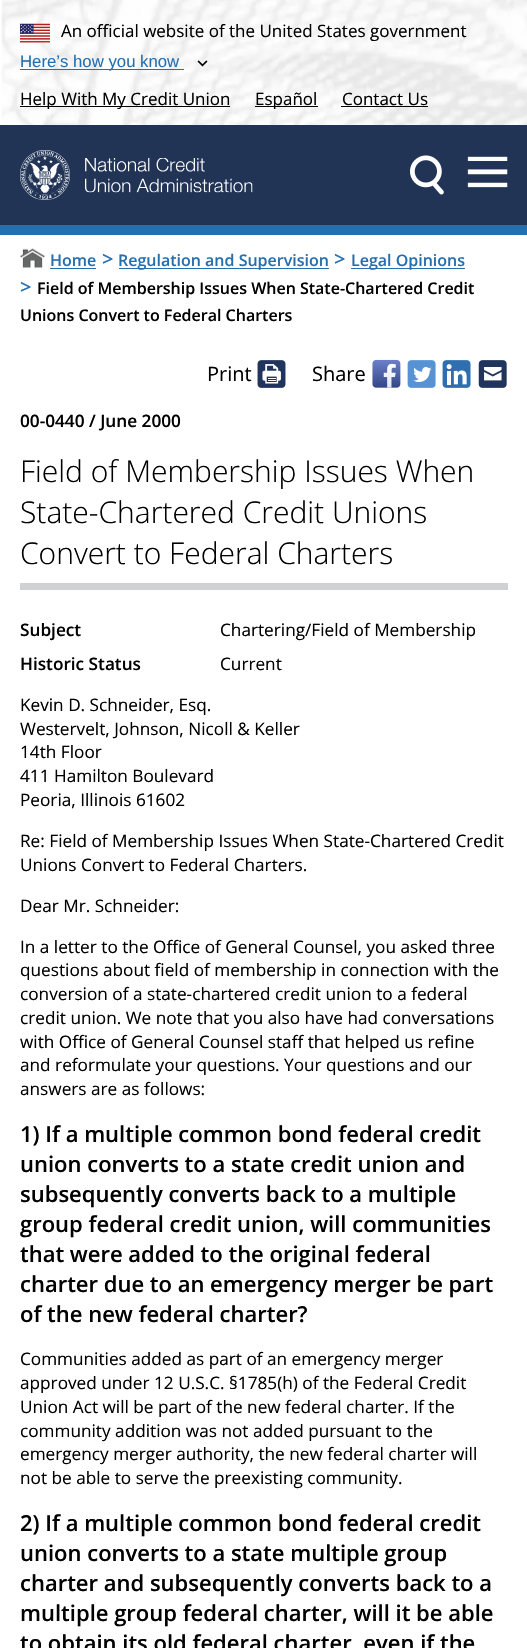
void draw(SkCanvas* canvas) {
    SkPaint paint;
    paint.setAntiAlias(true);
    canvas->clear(0xFFFFFFFF);
    canvas->drawImageRect(SkImages::DeferredFromEncodedData(SkData::MakeFromFileName("img1.png")), SkRect::MakeXYWH(1, 0, 526, 125), SkSamplingOptions());
    canvas->drawImageRect(SkImages::DeferredFromEncodedData(SkData::MakeFromFileName("img2.png")), SkRect::MakeXYWH(20, 23, 30, 20), SkSamplingOptions());
    SkFont font1(fontMgr->matchFamilyStyle("Open Sans", SkFontStyle::Normal()), 17);
    font1.setSubpixel(true);
    paint.setColor(0xFF000000);
    canvas->drawString("An official website of the United States government", 61, 37, font1, paint);
    paint.setColor(0xFF266FAE);
    canvas->drawRect(SkRect::MakeXYWH(20, 69, 164, 1), paint);
    SkFont font2(fontMgr->matchFamilyStyle("Liberation Sans", SkFontStyle::Normal()), 16.75f);
    font2.setSubpixel(true);
    canvas->drawString("Here’s how you know", 20, 67, font2, paint);
    canvas->drawImageRect(SkImages::DeferredFromEncodedData(SkData::MakeFromFileName("img3.png")), SkRect::MakeXYWH(197, 60, 11, 7), SkSamplingOptions());
    paint.setColor(0xFF000000);
    canvas->drawRect(SkRect::MakeXYWH(20, 106, 210, 1), paint);
    canvas->drawString("Help With My Credit Union", 20, 105, font1, paint);
    canvas->drawRect(SkRect::MakeXYWH(255, 106, 63, 1), paint);
    canvas->drawString("Español", 255, 105, font1, paint);
    canvas->drawString("Contact Us", 342, 105, font1, paint);
    canvas->drawRect(SkRect::MakeXYWH(341, 106, 87, 1), paint);
    paint.setColor(0xFF213456);
    canvas->drawRect(SkRect::MakeXYWH(0, 125, 527, 100), paint);
    paint.setColor(0xFF266FAE);
    canvas->drawRect(SkRect::MakeXYWH(0, 225, 527, 10), paint);
    canvas->drawImageRect(SkImages::DeferredFromEncodedData(SkData::MakeFromFileName("img4.png")), SkRect::MakeXYWH(20, 150, 50, 50), SkSamplingOptions());
    canvas->drawImageRect(SkImages::DeferredFromEncodedData(SkData::MakeFromFileName("img5.png")), SkRect::MakeXYWH(85, 158, 168, 35), SkSamplingOptions());
    canvas->drawImageRect(SkImages::DeferredFromEncodedData(SkData::MakeFromFileName("img6.png")), SkRect::MakeXYWH(410, 155, 34, 40), SkSamplingOptions());
    canvas->drawImageRect(SkImages::DeferredFromEncodedData(SkData::MakeFromFileName("img7.png")), SkRect::MakeXYWH(467, 156, 41, 32), SkSamplingOptions());
    canvas->drawImageRect(SkImages::DeferredFromEncodedData(SkData::MakeFromFileName("img8.png")), SkRect::MakeXYWH(20, 248, 25, 20), SkSamplingOptions());
    SkFont font3(fontMgr->matchFamilyStyle("Open Sans", SkFontStyle(600, SkFontStyle::kNormal_Width, SkFontStyle::kUpright_Slant)), 16);
    font3.setSubpixel(true);
    canvas->drawString("Home", 50, 266, font3, paint);
    canvas->drawRect(SkRect::MakeXYWH(50, 268, 46, 1), paint);
    SkFont font4(fontMgr->matchFamilyStyle("Open Sans", SkFontStyle(600, SkFontStyle::kNormal_Width, SkFontStyle::kUpright_Slant)), 20);
    font4.setSubpixel(true);
    canvas->drawString(">", 102, 266, font4, paint);
    canvas->drawRect(SkRect::MakeXYWH(119, 268, 210, 1), paint);
    canvas->drawString("Regulation and Supervision", 118, 266, font3, paint);
    canvas->drawString(">", 334, 266, font4, paint);
    canvas->drawRect(SkRect::MakeXYWH(351, 268, 114, 1), paint);
    canvas->drawString("Legal Opinions", 351, 266, font3, paint);
    canvas->drawString(">", 20, 294, font4, paint);
    paint.setColor(0xFF000000);
    canvas->drawString("Field of Membership Issues When State-Chartered Credit", 37, 294, font3, paint);
    canvas->drawString("Unions Convert to Federal Charters", 20, 321, font3, paint);
    SkFont font5(fontMgr->matchFamilyStyle("Open Sans", SkFontStyle::Normal()), 20);
    font5.setSubpixel(true);
    canvas->drawString("Print", 207, 381, font5, paint);
    canvas->drawImageRect(SkImages::DeferredFromEncodedData(SkData::MakeFromFileName("img9.png")), SkRect::MakeXYWH(257, 360, 29, 28), SkSamplingOptions());
    canvas->drawString("Share", 312, 381, font5, paint);
    canvas->drawImageRect(SkImages::DeferredFromEncodedData(SkData::MakeFromFileName("img10.png")), SkRect::MakeXYWH(372, 359, 29, 29), SkSamplingOptions());
    canvas->drawImageRect(SkImages::DeferredFromEncodedData(SkData::MakeFromFileName("img11.png")), SkRect::MakeXYWH(407, 360, 29, 28), SkSamplingOptions());
    canvas->drawImageRect(SkImages::DeferredFromEncodedData(SkData::MakeFromFileName("img12.png")), SkRect::MakeXYWH(442, 360, 29, 28), SkSamplingOptions());
    canvas->drawImageRect(SkImages::DeferredFromEncodedData(SkData::MakeFromFileName("img13.png")), SkRect::MakeXYWH(478, 360, 29, 28), SkSamplingOptions());
    SkFont font6(fontMgr->matchFamilyStyle("Open Sans", SkFontStyle(600, SkFontStyle::kNormal_Width, SkFontStyle::kUpright_Slant)), 17.2f);
    font6.setSubpixel(true);
    canvas->drawString("00-0440 / June 2000", 20, 427, font6, paint);
    paint.setColor(0xFFCFD1D2);
    canvas->drawRect(SkRect::MakeXYWH(20, 583, 488, 7), paint);
    SkFont font7(fontMgr->matchFamilyStyle("Open Sans", SkFontStyle(300, SkFontStyle::kNormal_Width, SkFontStyle::kUpright_Slant)), 30);
    font7.setSubpixel(true);
    paint.setColor(0xFF000000);
    canvas->drawString("Field of Membership Issues When", 20, 482, font7, paint);
    canvas->drawString("State-Chartered Credit Unions", 20, 523, font7, paint);
    canvas->drawString("Convert to Federal Charters", 20, 564, font7, paint);
    canvas->drawString("Subject", 20, 636, font6, paint);
    SkFont font8(fontMgr->matchFamilyStyle("Open Sans", SkFontStyle::Normal()), 17.2f);
    font8.setSubpixel(true);
    canvas->drawString("Chartering/Field of Membership", 220, 636, font8, paint);
    canvas->drawString("Historic Status", 20, 670, font6, paint);
    canvas->drawString("Current", 220, 670, font8, paint);
    canvas->drawString("Kevin D. Schneider, Esq.", 20, 711, font8, paint);
    canvas->drawString("Westervelt, Johnson, Nicoll & Keller", 20, 735, font8, paint);
    canvas->drawString("14th Floor", 20, 758, font8, paint);
    canvas->drawString("411 Hamilton Boulevard", 20, 782, font8, paint);
    canvas->drawString("Peoria, Illinois 61602", 20, 806, font8, paint);
    canvas->drawString("Re: Field of Membership Issues When State-Chartered Credit", 20, 847, font8, paint);
    canvas->drawString("Unions Convert to Federal Charters.", 20, 871, font8, paint);
    canvas->drawString("Dear Mr. Schneider:", 20, 912, font8, paint);
    canvas->drawString("In a letter to the Office of General Counsel, you asked three", 20, 953, font8, paint);
    canvas->drawString("questions about field of membership in connection with the", 20, 976, font8, paint);
    canvas->drawString("conversion of a state-chartered credit union to a federal", 20, 1000, font8, paint);
    canvas->drawString("credit union. We note that you also have had conversations", 20, 1024, font8, paint);
    canvas->drawString("with Office of General Counsel staff that helped us refine", 20, 1048, font8, paint);
    canvas->drawString("and reformulate your questions. Your questions and our", 20, 1071, font8, paint);
    canvas->drawString("answers are as follows:", 20, 1095, font8, paint);
    SkFont font9(fontMgr->matchFamilyStyle("Open Sans", SkFontStyle(600, SkFontStyle::kNormal_Width, SkFontStyle::kUpright_Slant)), 22);
    font9.setSubpixel(true);
    canvas->drawString("1) If a multiple common bond federal credit", 20, 1142, font9, paint);
    canvas->drawString("union converts to a state credit union and", 20, 1172, font9, paint);
    canvas->drawString("subsequently converts back to a multiple", 20, 1202, font9, paint);
    canvas->drawString("group federal credit union, will communities", 20, 1232, font9, paint);
    canvas->drawString("that were added to the original federal", 20, 1262, font9, paint);
    canvas->drawString("charter due to an emergency merger be part", 20, 1292, font9, paint);
    canvas->drawString("of the new federal charter?", 20, 1322, font9, paint);
    canvas->drawString("Communities added as part of an emergency merger", 20, 1365, font8, paint);
    canvas->drawString("approved under 12 U.S.C. §1785(h) of the Federal Credit", 20, 1389, font8, paint);
    canvas->drawString("Union Act will be part of the new federal charter. If the", 20, 1413, font8, paint);
    canvas->drawString("community addition was not added pursuant to the", 20, 1437, font8, paint);
    canvas->drawString("emergency merger authority, the new federal charter will", 20, 1460, font8, paint);
    canvas->drawString("not be able to serve the preexisting community.", 20, 1484, font8, paint);
    canvas->drawString("2) If a multiple common bond federal credit", 20, 1531, font9, paint);
    canvas->drawString("union converts to a state multiple group", 20, 1561, font9, paint);
    canvas->drawString("charter and subsequently converts back to a", 20, 1591, font9, paint);
    canvas->drawString("multiple group federal charter, will it be able", 20, 1621, font9, paint);
    canvas->drawString("to obtain its old federal charter, even if the", 20, 1651, font9, paint);
}
